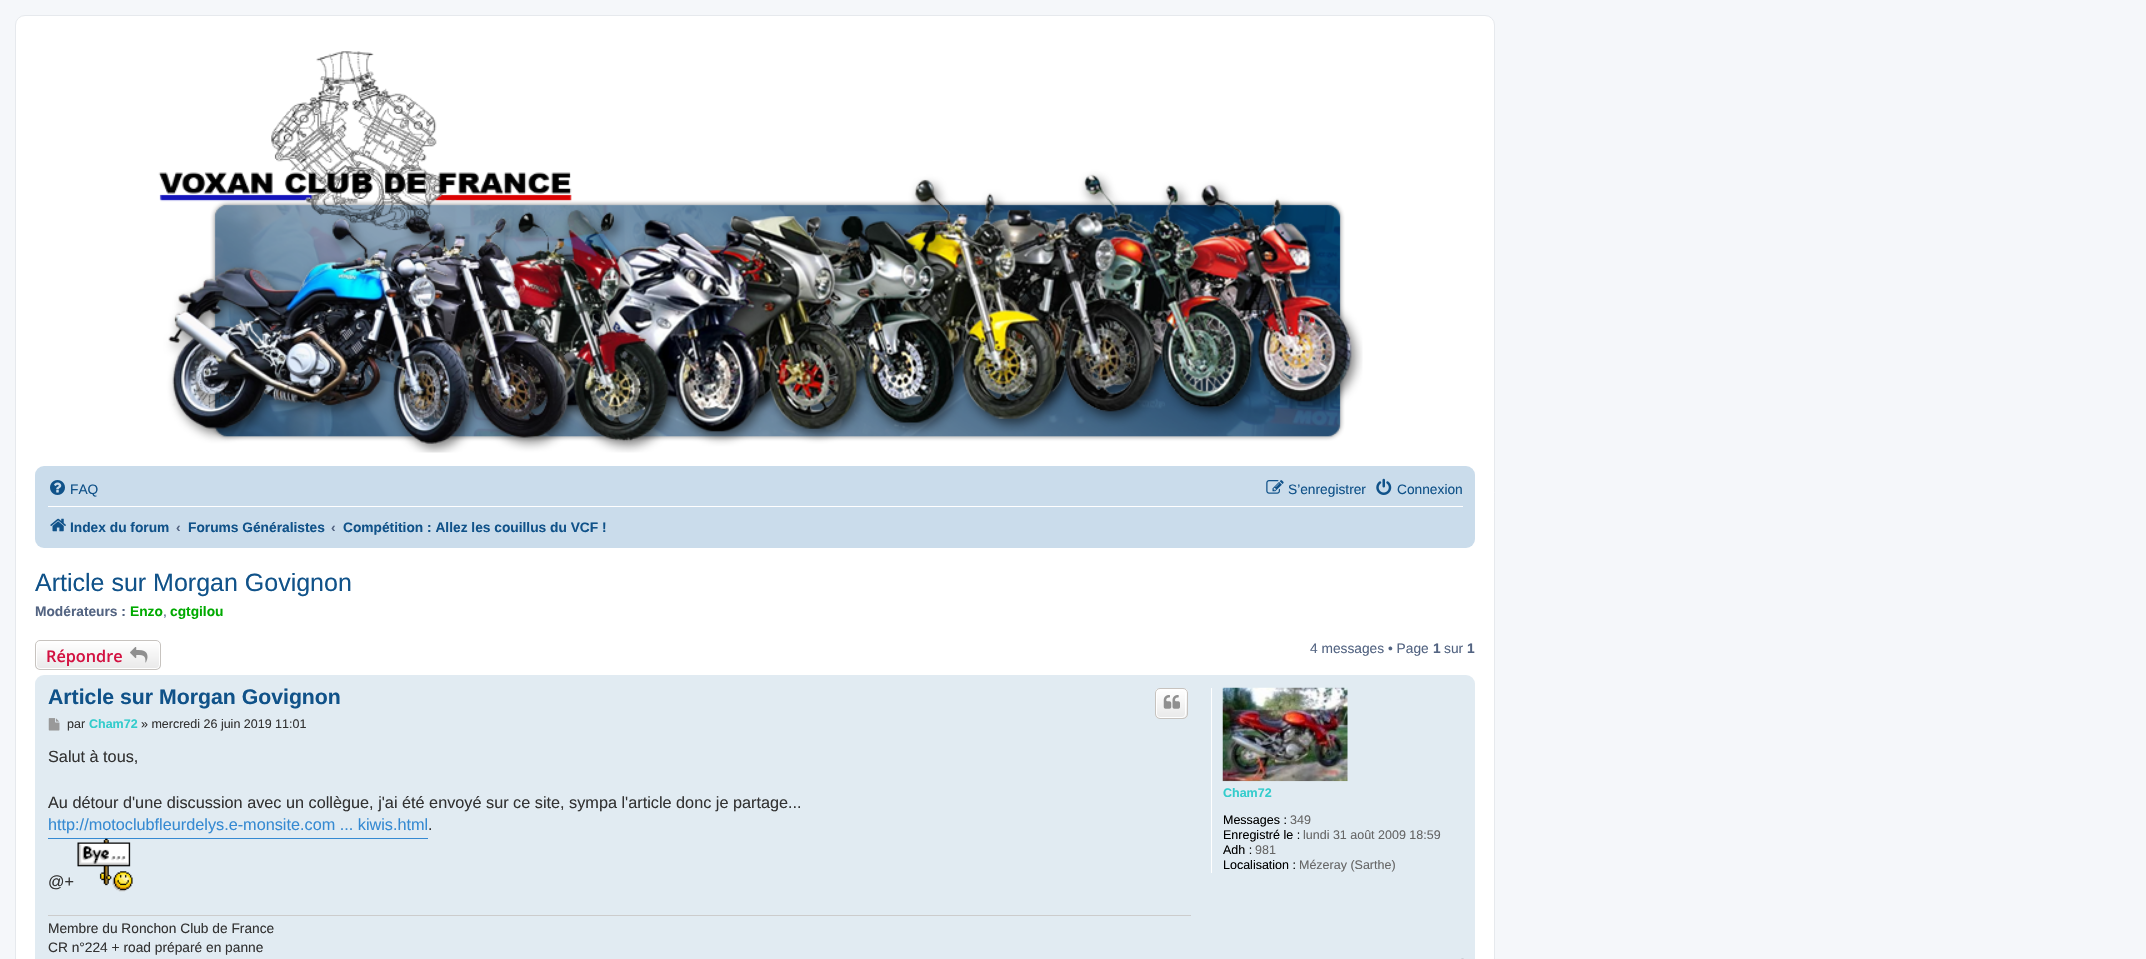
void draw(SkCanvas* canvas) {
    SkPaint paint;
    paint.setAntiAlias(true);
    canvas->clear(0xFFF5F7FA);
    paint.setColor(0xFFFFFFFF);
    canvas->drawRoundRect(SkRect::MakeXYWH(15.5f, 15.5f, 1479, 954), 9.5f, 9.5f, paint);
    paint.setStyle(SkPaint::kStroke_Style);
    paint.setStrokeWidth(1);
    paint.setColor(0xFFE6E9ED);
    canvas->drawRoundRect(SkRect::MakeXYWH(15.5f, 15.5f, 1479, 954), 9.5f, 9.5f, paint);
    canvas->drawImageRect(SkImages::DeferredFromEncodedData(SkData::MakeFromFileName("img1.png")), SkRect::MakeXYWH(158, 51, 1205, 402), SkSamplingOptions());
    paint.setStyle(SkPaint::kFill_Style);
    paint.setColor(0xFFCADCEB);
    canvas->drawRoundRect(SkRect::MakeXYWH(35, 466, 1440, 82), 9, 9, paint);
    canvas->drawImageRect(SkImages::DeferredFromEncodedData(SkData::MakeFromFileName("img2.png")), SkRect::MakeXYWH(50, 480, 15, 15), SkSamplingOptions());
    SkFont font1(fontMgr->matchFamilyStyle("Liberation Sans", SkFontStyle::Normal()), 13.75f);
    font1.setSubpixel(true);
    paint.setColor(0xFF105289);
    canvas->drawString("FAQ", 70, 494, font1, paint);
    canvas->drawImageRect(SkImages::DeferredFromEncodedData(SkData::MakeFromFileName("img3.png")), SkRect::MakeXYWH(1266, 480, 18, 14), SkSamplingOptions());
    canvas->drawString("S’enregistrer", 1288, 494, font1, paint);
    canvas->drawImageRect(SkImages::DeferredFromEncodedData(SkData::MakeFromFileName("img4.png")), SkRect::MakeXYWH(1376, 478, 16, 17), SkSamplingOptions());
    canvas->drawString("Connexion", 1397, 494, font1, paint);
    paint.setColor(0xFFFFFFFF);
    canvas->drawRect(SkRect::MakeXYWH(48, 506, 1415, 1), paint);
    canvas->drawImageRect(SkImages::DeferredFromEncodedData(SkData::MakeFromFileName("img5.png")), SkRect::MakeXYWH(50, 518, 16, 14), SkSamplingOptions());
    SkFont font2(fontMgr->matchFamilyStyle("Liberation Sans", SkFontStyle::Bold()), 13.75f);
    font2.setSubpixel(true);
    paint.setColor(0xFF105289);
    canvas->drawString("Index du forum", 70, 532, font2, paint);
    paint.setColor(0xFF536482);
    canvas->drawString("‹", 176, 532, font2, paint);
    paint.setColor(0xFF105289);
    canvas->drawString("Forums Généralistes", 188, 532, font2, paint);
    paint.setColor(0xFF536482);
    canvas->drawString("‹", 331, 532, font2, paint);
    paint.setColor(0xFF105289);
    canvas->drawString("Compétition : Allez les couillus du VCF !", 343, 532, font2, paint);
    SkFont font3(fontMgr->matchFamilyStyle("Liberation Sans", SkFontStyle::Normal()), 25);
    font3.setSubpixel(true);
    canvas->drawString("Article sur Morgan Govignon", 35, 591, font3, paint);
    paint.setColor(0xFF536482);
    canvas->drawString("Modérateurs :", 35, 616, font2, paint);
    paint.setColor(0xFF00AA00);
    canvas->drawString("Enzo", 130, 616, font2, paint);
    paint.setColor(0xFF536482);
    canvas->drawString(",", 163, 616, font1, paint);
    paint.setColor(0xFF00AA00);
    canvas->drawString("cgtgilou", 170, 616, font2, paint);
    canvas->save();
    canvas->clipPath(SkPathBuilder().moveTo(40, 640).lineTo(156, 640).cubicTo(159, 640, 161, 642, 161, 645).lineTo(161, 665).cubicTo(161, 668, 159, 670, 156, 670).lineTo(40, 670).cubicTo(37, 670, 35, 668, 35, 665).lineTo(35, 645).cubicTo(35, 642, 37, 640, 40, 640).close().detach(), true);
    {
        const SkColor colors[] = {0xFFFFFFFF, 0xFFE9E9E9};
        const float stops[] = {0, 1};
        const SkPoint ends[] = {{98, 641}, {98, 669}};
        paint.setShader(SkGradientShader::MakeLinear(ends, colors, stops, 2, SkTileMode::kClamp));
        paint.setAlpha(255);
    }
    canvas->drawRect(SkRect::MakeXYWH(35, 641, 126, 28), paint);
    canvas->restore();
    paint.setStyle(SkPaint::kStroke_Style);
    paint.setShader(nullptr);
    paint.setColor(0xFFFFFFFF);
    canvas->drawRoundRect(SkRect::MakeXYWH(36.5f, 641.5f, 123, 27), 3.5f, 3.5f, paint);
    paint.setColor(0xFFC7C3BF);
    canvas->drawRoundRect(SkRect::MakeXYWH(35.5f, 640.5f, 125, 29), 4.5f, 4.5f, paint);
    SkFont font4(fontMgr->matchFamilyStyle("Open Sans", SkFontStyle(600, SkFontStyle::kNormal_Width, SkFontStyle::kUpright_Slant)), 16.25f);
    font4.setSubpixel(true);
    paint.setStyle(SkPaint::kFill_Style);
    paint.setColor(0xFFD31141);
    canvas->drawString("Répondre", 46, 662, font4, paint);
    canvas->drawImageRect(SkImages::DeferredFromEncodedData(SkData::MakeFromFileName("img6.png")), SkRect::MakeXYWH(130, 647, 18, 16), SkSamplingOptions());
    paint.setColor(0xFF536482);
    canvas->drawString("4 messages • Page", 1310, 653, font1, paint);
    canvas->drawString("1", 1433, 653, font2, paint);
    canvas->drawString("sur", 1444, 653, font1, paint);
    canvas->drawString("1", 1467, 653, font2, paint);
    paint.setColor(0xFFE1EBF2);
    canvas->drawRoundRect(SkRect::MakeXYWH(35, 675, 1440, 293), 9, 9, paint);
    SkFont font5(fontMgr->matchFamilyStyle("Liberation Sans", SkFontStyle::Bold()), 21.25f);
    font5.setSubpixel(true);
    paint.setColor(0xFF105289);
    canvas->drawString("Article sur Morgan Govignon", 48, 704, font5, paint);
    canvas->save();
    canvas->clipPath(SkPathBuilder().moveTo(1160, 688).lineTo(1183, 688).cubicTo(1186, 688, 1188, 690, 1188, 693).lineTo(1188, 714).cubicTo(1188, 717, 1186, 719, 1183, 719).lineTo(1160, 719).cubicTo(1157, 719, 1155, 717, 1155, 714).lineTo(1155, 693).cubicTo(1155, 690, 1157, 688, 1160, 688).close().detach(), true);
    {
        const SkColor colors[] = {0xFFFFFFFF, 0xFFE9E9E9};
        const float stops[] = {0, 1};
        const SkPoint ends[] = {{1171, 689}, {1171, 718}};
        paint.setShader(SkGradientShader::MakeLinear(ends, colors, stops, 2, SkTileMode::kClamp));
        paint.setAlpha(255);
    }
    canvas->drawRect(SkRect::MakeXYWH(1155, 689, 33, 29), paint);
    canvas->restore();
    paint.setStyle(SkPaint::kStroke_Style);
    paint.setShader(nullptr);
    paint.setColor(0xFFFFFFFF);
    canvas->drawRoundRect(SkRect::MakeXYWH(1156.5f, 689.5f, 29, 28), 3.5f, 3.5f, paint);
    paint.setColor(0xFFC7C3BF);
    canvas->drawRoundRect(SkRect::MakeXYWH(1155.5f, 688.5f, 32, 30), 4.5f, 4.5f, paint);
    canvas->drawImageRect(SkImages::DeferredFromEncodedData(SkData::MakeFromFileName("img7.png")), SkRect::MakeXYWH(1163, 695, 17, 14), SkSamplingOptions());
    canvas->drawImageRect(SkImages::DeferredFromEncodedData(SkData::MakeFromFileName("img8.png")), SkRect::MakeXYWH(48, 718, 12, 13), SkSamplingOptions());
    SkFont font6(fontMgr->matchFamilyStyle("Liberation Sans", SkFontStyle::Normal()), 12.5f);
    font6.setSubpixel(true);
    paint.setStyle(SkPaint::kFill_Style);
    paint.setColor(0xFF333333);
    canvas->drawString("par", 67, 728, font6, paint);
    SkFont font7(fontMgr->matchFamilyStyle("Liberation Sans", SkFontStyle::Bold()), 12.5f);
    font7.setSubpixel(true);
    paint.setColor(0xFF33CCCC);
    canvas->drawString("Cham72", 89, 728, font7, paint);
    paint.setColor(0xFF333333);
    canvas->drawString("» mercredi 26 juin 2019 11:01", 141, 728, font6, paint);
    SkFont font8(fontMgr->matchFamilyStyle("Liberation Sans", SkFontStyle::Normal()), 16.25f);
    font8.setSubpixel(true);
    canvas->drawString("Salut à tous,", 48, 762, font8, paint);
    canvas->drawString("Au détour d'une discussion avec un collègue, j'ai été envoyé sur ce site, sympa l'article donc je partage...", 48, 808, font8, paint);
    paint.setColor(0xFF368AD2);
    canvas->drawRect(SkRect::MakeXYWH(48, 838, 380, 1), paint);
    canvas->drawString("http://motoclubfleurdelys.e-monsite.com ... kiwis.html", 48, 830, font8, paint);
    paint.setColor(0xFF333333);
    canvas->drawString(".", 428, 830, font8, paint);
    canvas->drawString("@+", 48, 887, font8, paint);
    canvas->drawImageRect(SkImages::DeferredFromEncodedData(SkData::MakeFromFileName("img9.png")), SkRect::MakeXYWH(77, 838, 56, 54), SkSamplingOptions());
    paint.setColor(0xFFCCCCCC);
    canvas->drawRect(SkRect::MakeXYWH(48, 915, 1143, 1), paint);
    paint.setColor(0xFF333333);
    canvas->drawString("Membre du Ronchon Club de France", 48, 933, font1, paint);
    canvas->drawString("CR n°224 + road préparé en panne", 48, 952, font1, paint);
    paint.setColor(0xFFFFFFFF);
    canvas->drawRect(SkRect::MakeXYWH(1211, 688, 1, 185), paint);
    canvas->drawImageRect(SkImages::DeferredFromEncodedData(SkData::MakeFromFileName("img10.png")), SkRect::MakeXYWH(1222, 687, 126, 95), SkSamplingOptions());
    paint.setColor(0xFF33CCCC);
    canvas->drawString("Cham72", 1223, 797, font7, paint);
    paint.setColor(0xFF000000);
    canvas->drawString("Messages :", 1223, 824, font6, paint);
    paint.setColor(0xFF666666);
    canvas->drawString("349", 1290, 824, font6, paint);
    paint.setColor(0xFF000000);
    canvas->drawString("Enregistré le :", 1223, 839, font6, paint);
    paint.setColor(0xFF666666);
    canvas->drawString("lundi 31 août 2009 18:59", 1303, 839, font6, paint);
    paint.setColor(0xFF000000);
    canvas->drawString("Adh :", 1223, 854, font6, paint);
    paint.setColor(0xFF666666);
    canvas->drawString("981", 1255, 854, font6, paint);
    paint.setColor(0xFF000000);
    canvas->drawString("Localisation :", 1223, 869, font6, paint);
    paint.setColor(0xFF666666);
    canvas->drawString("Mézeray (Sarthe)", 1299, 869, font6, paint);
    canvas->drawImageRect(SkImages::DeferredFromEncodedData(SkData::MakeFromFileName("img11.png")), SkRect::MakeXYWH(1461, 958, 3, 1), SkSamplingOptions());
}
